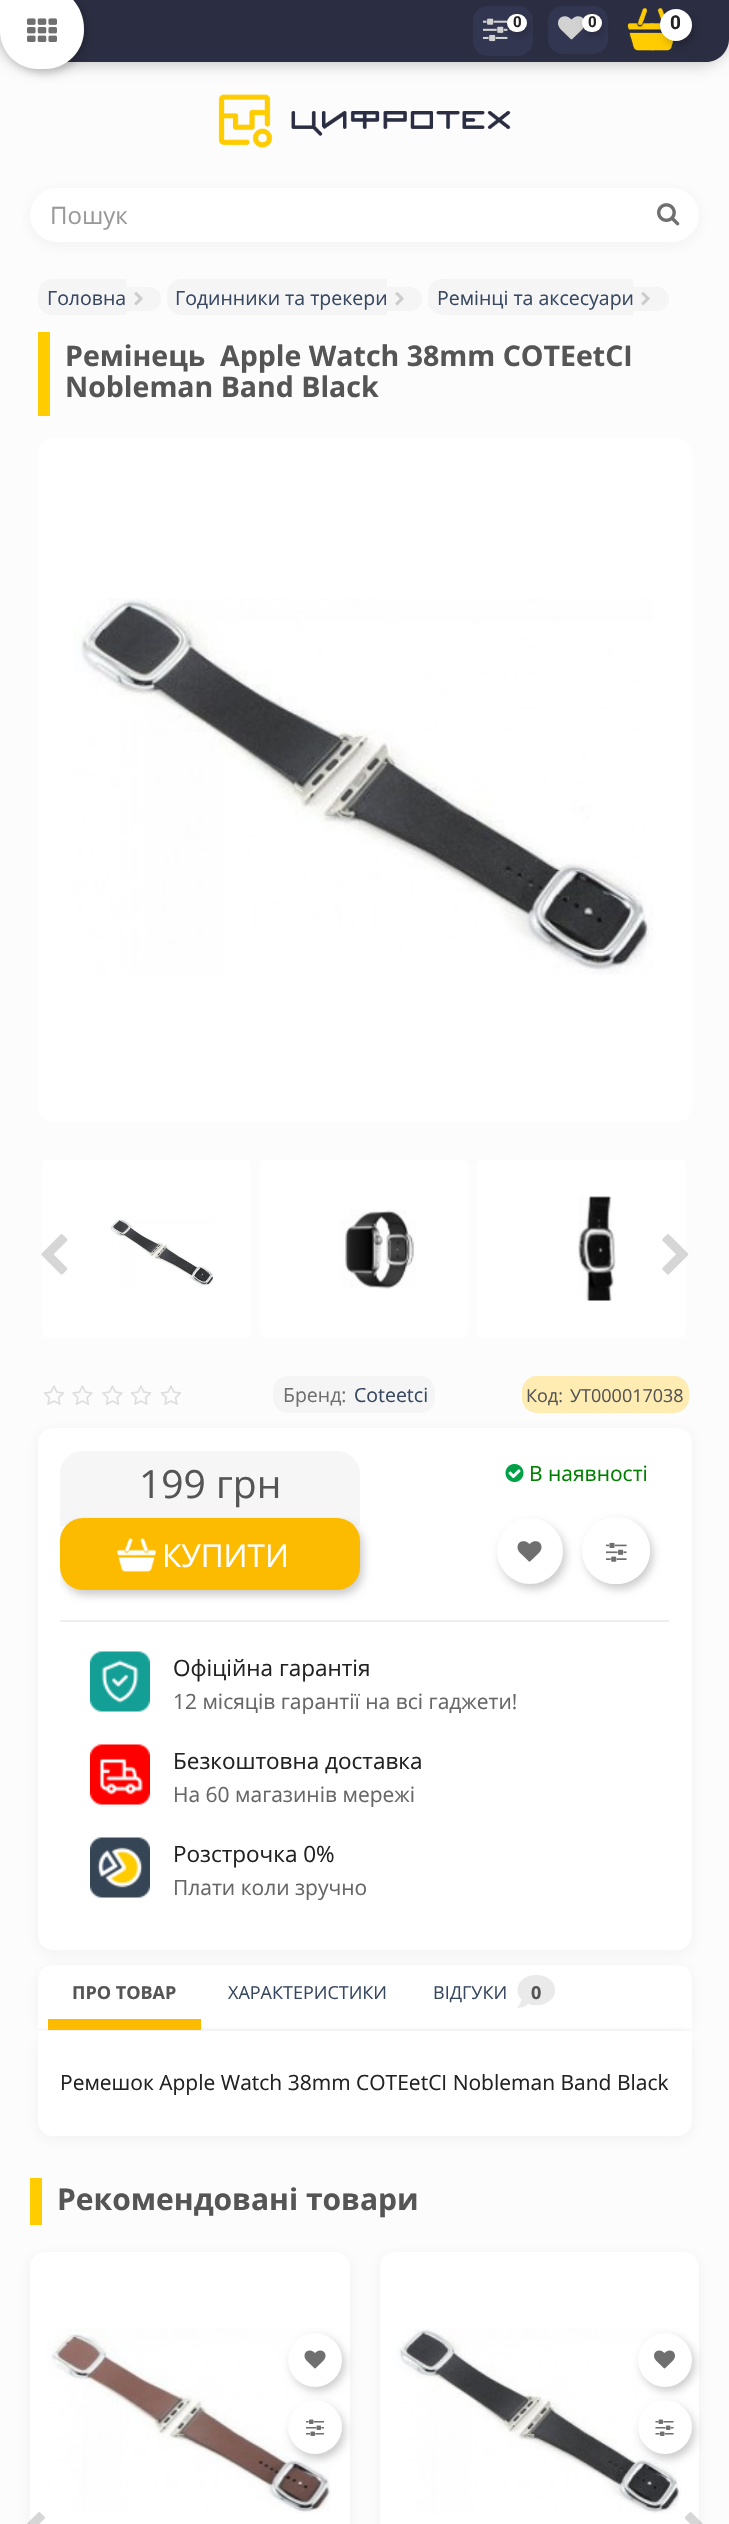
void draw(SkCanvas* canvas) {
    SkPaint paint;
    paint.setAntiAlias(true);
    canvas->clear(0xFFFCFCFC);
    paint.setColor(0x33000000);
    paint.setMaskFilter(SkMaskFilter::MakeBlur(kNormal_SkBlurStyle, 7.5f));
    canvas->drawRoundRect(SkRect::MakeXYWH(-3, -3, 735, 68), 63, 63, paint);
    paint.setMaskFilter(nullptr);
    paint.setColor(0xFF2B2D42);
    canvas->drawPath(SkPathBuilder().moveTo(0, 0).lineTo(729, 0).lineTo(729, 39).cubicTo(729, 51.5f, 718.5f, 62, 706, 62).lineTo(60, 62).cubicTo(27, 62, 0, 35, 0, 2).close().detach(), paint);
    paint.setColor(0x33000101);
    paint.setMaskFilter(SkMaskFilter::MakeBlur(kNormal_SkBlurStyle, 4));
    canvas->drawRoundRect(SkRect::MakeXYWH(3, -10, 84, 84), 44, 44, paint);
    paint.setMaskFilter(nullptr);
    paint.setColor(0xFFFFFFFF);
    canvas->drawPath(SkPathBuilder().moveTo(11, -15).lineTo(40, -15).cubicTo(64.5f, -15, 84, 4.5f, 84, 29).lineTo(84, 30).cubicTo(84, 51.5f, 66.5f, 69, 45, 69).lineTo(38, 69).cubicTo(17, 69, 0, 52, 0, 31).lineTo(0, -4).cubicTo(0, -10, 5, -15, 11, -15).close().detach(), paint);
    canvas->drawImageRect(SkImages::DeferredFromEncodedData(SkData::MakeFromFileName("img1.png")), SkRect::MakeXYWH(27, 18, 30, 24), SkSamplingOptions());
    paint.setColor(0xFF333651);
    canvas->drawRoundRect(SkRect::MakeXYWH(473, 6, 60, 50), 15, 15, paint);
    canvas->drawImageRect(SkImages::DeferredFromEncodedData(SkData::MakeFromFileName("img2.png")), SkRect::MakeXYWH(483, 18, 25, 24), SkSamplingOptions());
    paint.setColor(0x33000101);
    paint.setMaskFilter(SkMaskFilter::MakeBlur(kNormal_SkBlurStyle, 4));
    canvas->drawRoundRect(SkRect::MakeXYWH(510, 18, 20, 18), 9, 9, paint);
    paint.setMaskFilter(nullptr);
    paint.setColor(0xFFFFFFFF);
    canvas->drawRoundRect(SkRect::MakeXYWH(507, 14, 20, 18), 9, 9, paint);
    SkFont font1(fontMgr->matchFamilyStyle("Roboto", SkFontStyle::Bold()), 15);
    font1.setSubpixel(true);
    paint.setColor(0xFF222222);
    canvas->drawString("0", 513, 27, font1, paint);
    paint.setColor(0xFF333651);
    canvas->drawRoundRect(SkRect::MakeXYWH(548, 6, 60, 48), 15, 15, paint);
    canvas->drawImageRect(SkImages::DeferredFromEncodedData(SkData::MakeFromFileName("img3.png")), SkRect::MakeXYWH(558, 16, 26, 24), SkSamplingOptions());
    paint.setColor(0x33000101);
    paint.setMaskFilter(SkMaskFilter::MakeBlur(kNormal_SkBlurStyle, 4));
    canvas->drawRoundRect(SkRect::MakeXYWH(585, 18, 20, 18), 9, 9, paint);
    paint.setMaskFilter(nullptr);
    paint.setColor(0xFFFFFFFF);
    canvas->drawRoundRect(SkRect::MakeXYWH(582, 14, 20, 18), 9, 9, paint);
    paint.setColor(0xFF222222);
    canvas->drawString("0", 588, 27, font1, paint);
    canvas->drawImageRect(SkImages::DeferredFromEncodedData(SkData::MakeFromFileName("img4.png")), SkRect::MakeXYWH(627, 8, 47, 43), SkSamplingOptions());
    paint.setColor(0x33000101);
    paint.setMaskFilter(SkMaskFilter::MakeBlur(kNormal_SkBlurStyle, 4));
    canvas->drawRoundRect(SkRect::MakeXYWH(663, 14, 32, 31), 15.5f, 15.5f, paint);
    paint.setMaskFilter(nullptr);
    paint.setColor(0xFFFFFFFF);
    canvas->drawCircle(676, 25, 16, paint);
    SkFont font2(fontMgr->matchFamilyStyle("Roboto", SkFontStyle::Bold()), 19);
    font2.setSubpixel(true);
    paint.setColor(0xFF222222);
    canvas->drawString("0", 670, 29, font2, paint);
    canvas->drawImageRect(SkImages::DeferredFromEncodedData(SkData::MakeFromFileName("img5.png")), SkRect::MakeXYWH(218, 94, 293, 54), SkSamplingOptions());
    paint.setColor(0x0D303030);
    paint.setMaskFilter(SkMaskFilter::MakeBlur(kNormal_SkBlurStyle, 7.5f));
    canvas->drawRoundRect(SkRect::MakeXYWH(30, 191, 669, 54), 27, 27, paint);
    paint.setMaskFilter(nullptr);
    paint.setColor(0xFFFFFFFF);
    canvas->drawRoundRect(SkRect::MakeXYWH(30, 188, 669, 54), 27, 27, paint);
    SkFont font3(fontMgr->matchFamilyStyle("Open Sans", SkFontStyle::Normal()), 24);
    font3.setSubpixel(true);
    paint.setColor(0xFF999999);
    canvas->drawString("Пошук", 50, 224, font3, paint);
    canvas->drawImageRect(SkImages::DeferredFromEncodedData(SkData::MakeFromFileName("img6.png")), SkRect::MakeXYWH(657, 203, 23, 23), SkSamplingOptions());
    paint.setColor(0xFFF5F5F5);
    canvas->drawPath(SkPathBuilder().moveTo(53, 279).lineTo(126, 279).lineTo(126, 315).lineTo(53, 315).cubicTo(44.5f, 315, 38, 308.5f, 38, 300).lineTo(38, 294).cubicTo(38, 285.5f, 44.5f, 279, 53, 279).close().detach(), paint);
    SkFont font4(fontMgr->matchFamilyStyle("Open Sans", SkFontStyle::Normal()), 19.5f);
    font4.setSubpixel(true);
    paint.setColor(0xFF384861);
    canvas->drawString("Головна", 47, 305, font4, paint);
    paint.setColor(0xFFF5F5F5);
    canvas->drawPath(SkPathBuilder().moveTo(126, 287).lineTo(149, 287).cubicTo(155.5f, 287, 161, 292.5f, 161, 299).cubicTo(161, 305.5f, 155.5f, 311, 149, 311).lineTo(126, 311).close().detach(), paint);
    canvas->drawImageRect(SkImages::DeferredFromEncodedData(SkData::MakeFromFileName("img7.png")), SkRect::MakeXYWH(134, 292, 9, 14), SkSamplingOptions());
    canvas->drawPath(SkPathBuilder().moveTo(182, 279).lineTo(387, 279).lineTo(387, 315).lineTo(182, 315).cubicTo(173.5f, 315, 167, 308.5f, 167, 300).lineTo(167, 294).cubicTo(167, 285.5f, 173.5f, 279, 182, 279).close().detach(), paint);
    paint.setColor(0xFF384861);
    canvas->drawString("Годинники та трекери", 175, 305, font4, paint);
    paint.setColor(0xFFF5F5F5);
    canvas->drawPath(SkPathBuilder().moveTo(387, 287).lineTo(410, 287).cubicTo(416.5f, 287, 422, 292.5f, 422, 299).cubicTo(422, 305.5f, 416.5f, 311, 410, 311).lineTo(387, 311).close().detach(), paint);
    canvas->drawImageRect(SkImages::DeferredFromEncodedData(SkData::MakeFromFileName("img7.png")), SkRect::MakeXYWH(395, 292, 9, 14), SkSamplingOptions());
    canvas->drawPath(SkPathBuilder().moveTo(443, 279).lineTo(633, 279).lineTo(633, 315).lineTo(443, 315).cubicTo(434.5f, 315, 428, 308.5f, 428, 300).lineTo(428, 294).cubicTo(428, 285.5f, 434.5f, 279, 443, 279).close().detach(), paint);
    paint.setColor(0xFF384861);
    canvas->drawString("Ремінці та аксесуари", 437, 305, font4, paint);
    paint.setColor(0xFFF5F5F5);
    canvas->drawPath(SkPathBuilder().moveTo(633, 287).lineTo(657, 287).cubicTo(663.5f, 287, 669, 292.5f, 669, 299).cubicTo(669, 305.5f, 663.5f, 311, 657, 311).lineTo(633, 311).close().detach(), paint);
    canvas->drawImageRect(SkImages::DeferredFromEncodedData(SkData::MakeFromFileName("img7.png")), SkRect::MakeXYWH(641, 292, 9, 14), SkSamplingOptions());
    paint.setColor(0xFFFFCC00);
    canvas->drawRect(SkRect::MakeXYWH(38, 332, 12, 84), paint);
    SkFont font5(fontMgr->matchFamilyStyle("Open Sans", SkFontStyle::Bold()), 28.5f);
    font5.setSubpixel(true);
    paint.setColor(0xFF555555);
    canvas->drawString("Ремінець  Apple Watch 38mm COTEetCI", 65, 366, font5, paint);
    canvas->drawString("Nobleman Band Black", 65, 397, font5, paint);
    paint.setColor(0xFFFFFFFF);
    canvas->drawRoundRect(SkRect::MakeXYWH(38, 438, 654, 684), 15, 15, paint);
    canvas->drawImageRect(SkImages::DeferredFromEncodedData(SkData::MakeFromFileName("img8.png")), SkRect::MakeXYWH(73, 598, 581, 377), SkSamplingOptions());
    canvas->drawRoundRect(SkRect::MakeXYWH(42, 1160, 209, 178), 5, 5, paint);
    canvas->drawImageRect(SkImages::DeferredFromEncodedData(SkData::MakeFromFileName("img9.png")), SkRect::MakeXYWH(109, 1219, 105, 67), SkSamplingOptions());
    canvas->drawRoundRect(SkRect::MakeXYWH(260, 1160, 208, 178), 5, 5, paint);
    canvas->drawImageRect(SkImages::DeferredFromEncodedData(SkData::MakeFromFileName("img10.png")), SkRect::MakeXYWH(340, 1210, 76, 79), SkSamplingOptions());
    canvas->drawRoundRect(SkRect::MakeXYWH(477, 1160, 209, 178), 5, 5, paint);
    canvas->drawImageRect(SkImages::DeferredFromEncodedData(SkData::MakeFromFileName("img11.png")), SkRect::MakeXYWH(578, 1196, 38, 105), SkSamplingOptions());
    canvas->drawImageRect(SkImages::DeferredFromEncodedData(SkData::MakeFromFileName("img12.png")), SkRect::MakeXYWH(41, 1234, 27, 41), SkSamplingOptions());
    canvas->drawImageRect(SkImages::DeferredFromEncodedData(SkData::MakeFromFileName("img13.png")), SkRect::MakeXYWH(662, 1234, 27, 41), SkSamplingOptions());
    canvas->drawImageRect(SkImages::DeferredFromEncodedData(SkData::MakeFromFileName("img14.png")), SkRect::MakeXYWH(43, 1385, 22, 20), SkSamplingOptions());
    canvas->drawImageRect(SkImages::DeferredFromEncodedData(SkData::MakeFromFileName("img15.png")), SkRect::MakeXYWH(72, 1385, 21, 20), SkSamplingOptions());
    canvas->drawImageRect(SkImages::DeferredFromEncodedData(SkData::MakeFromFileName("img15.png")), SkRect::MakeXYWH(102, 1385, 21, 20), SkSamplingOptions());
    canvas->drawImageRect(SkImages::DeferredFromEncodedData(SkData::MakeFromFileName("img14.png")), SkRect::MakeXYWH(130, 1385, 22, 20), SkSamplingOptions());
    canvas->drawImageRect(SkImages::DeferredFromEncodedData(SkData::MakeFromFileName("img14.png")), SkRect::MakeXYWH(160, 1385, 22, 20), SkSamplingOptions());
    paint.setColor(0xFFF5F5F5);
    canvas->drawRoundRect(SkRect::MakeXYWH(273, 1376, 162, 37), 15, 15, paint);
    paint.setColor(0xFF6F6F6F);
    canvas->drawString("Бренд:", 283, 1402, font4, paint);
    paint.setColor(0xFF384861);
    canvas->drawString("Coteetci", 354, 1402, font4, paint);
    paint.setColor(0xFFFFECB2);
    canvas->drawRoundRect(SkRect::MakeXYWH(522, 1376, 167, 37), 15, 15, paint);
    SkFont font6(fontMgr->matchFamilyStyle("Open Sans", SkFontStyle::Normal()), 18);
    font6.setSubpixel(true);
    paint.setColor(0xFF555555);
    canvas->drawString("Код:", 526, 1402, font6, paint);
    canvas->drawString("УТ000017038", 570, 1402, font6, paint);
    paint.setColor(0x0D303030);
    paint.setMaskFilter(SkMaskFilter::MakeBlur(kNormal_SkBlurStyle, 7.5f));
    canvas->drawRoundRect(SkRect::MakeXYWH(38, 1431, 654, 522), 15, 15, paint);
    paint.setMaskFilter(nullptr);
    paint.setColor(0xFFFFFFFF);
    canvas->drawRoundRect(SkRect::MakeXYWH(38, 1428, 654, 522), 15, 15, paint);
    paint.setColor(0xFFF6F6F6);
    canvas->drawPath(SkPathBuilder().moveTo(83, 1451).lineTo(337, 1451).cubicTo(349.5f, 1451, 360, 1461.5f, 360, 1474).lineTo(360, 1526).lineTo(60, 1526).lineTo(60, 1474).cubicTo(60, 1461.5f, 70.5f, 1451, 83, 1451).close().detach(), paint);
    SkFont font7(fontMgr->matchFamilyStyle("Open Sans", SkFontStyle::Normal()), 39);
    font7.setSubpixel(true);
    paint.setColor(0xFF555555);
    canvas->drawString("199 грн", 139, 1498, font7, paint);
    canvas->drawImageRect(SkImages::DeferredFromEncodedData(SkData::MakeFromFileName("img16.png")), SkRect::MakeXYWH(505, 1464, 19, 18), SkSamplingOptions());
    SkFont font8(fontMgr->matchFamilyStyle("Open Sans", SkFontStyle::Normal()), 21);
    font8.setSubpixel(true);
    paint.setColor(0xFF008000);
    canvas->drawString("В наявності", 529, 1481, font8, paint);
    canvas->save();
    canvas->clipRect(SkRect::MakeXYWH(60, 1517, 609, 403));
    paint.setColor(0x33000101);
    paint.setMaskFilter(SkMaskFilter::MakeBlur(kNormal_SkBlurStyle, 4));
    canvas->drawRoundRect(SkRect::MakeXYWH(63, 1523, 300, 72), 23, 23, paint);
    paint.setMaskFilter(nullptr);
    canvas->restore();
    paint.setColor(0xFFFDBB00);
    canvas->drawRoundRect(SkRect::MakeXYWH(60, 1518, 300, 72), 23, 23, paint);
    canvas->drawImageRect(SkImages::DeferredFromEncodedData(SkData::MakeFromFileName("img17.png")), SkRect::MakeXYWH(117, 1538, 39, 34), SkSamplingOptions());
    SkFont font9(fontMgr->matchFamilyStyle("Open Sans", SkFontStyle::Normal()), 31.5f);
    font9.setSubpixel(true);
    paint.setColor(0xFFFFFFFF);
    canvas->drawString("КУПИТИ", 162, 1567, font9, paint);
    paint.setColor(0x33000101);
    paint.setMaskFilter(SkMaskFilter::MakeBlur(kNormal_SkBlurStyle, 4));
    canvas->drawRoundRect(SkRect::MakeXYWH(500, 1523, 66, 66), 33, 33, paint);
    paint.setMaskFilter(nullptr);
    paint.setColor(0xFFFFFFFF);
    canvas->drawCircle(530, 1551, 33, paint);
    canvas->drawImageRect(SkImages::DeferredFromEncodedData(SkData::MakeFromFileName("img18.png")), SkRect::MakeXYWH(517, 1541, 25, 21), SkSamplingOptions());
    canvas->save();
    canvas->clipPath(SkPathBuilder(SkPathFillType::kEvenOdd).moveTo(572, 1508).lineTo(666, 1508).lineTo(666, 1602).lineTo(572, 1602).close().moveTo(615.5f, 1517).lineTo(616.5f, 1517).cubicTo(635, 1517, 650, 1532, 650, 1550.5f).cubicTo(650, 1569, 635, 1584, 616.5f, 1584).lineTo(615.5f, 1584).cubicTo(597, 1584, 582, 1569, 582, 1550.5f).cubicTo(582, 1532, 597, 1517, 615.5f, 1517).close().detach(), true);
    paint.setColor(0x33000101);
    paint.setMaskFilter(SkMaskFilter::MakeBlur(kNormal_SkBlurStyle, 4));
    canvas->drawRoundRect(SkRect::MakeXYWH(585, 1521, 68, 68), 34, 34, paint);
    paint.setMaskFilter(nullptr);
    canvas->restore();
    paint.setColor(0xFFFFFFFF);
    canvas->drawRoundRect(SkRect::MakeXYWH(582, 1517, 68, 67), 33.5f, 33.5f, paint);
    canvas->drawImageRect(SkImages::DeferredFromEncodedData(SkData::MakeFromFileName("img19.png")), SkRect::MakeXYWH(606, 1542, 21, 20), SkSamplingOptions());
    paint.setColor(0xFFEEEEEE);
    canvas->drawRect(SkRect::MakeXYWH(60, 1620, 609, 2), paint);
    canvas->drawImageRect(SkImages::DeferredFromEncodedData(SkData::MakeFromFileName("img20.png")), SkRect::MakeXYWH(90, 1651, 60, 61), SkSamplingOptions());
    SkFont font10(fontMgr->matchFamilyStyle("Open Sans", SkFontStyle::Normal()), 22.5f);
    font10.setSubpixel(true);
    paint.setColor(0xFF222222);
    canvas->drawString("Офіційна гарантія", 173, 1676, font10, paint);
    paint.setColor(0xFF666666);
    canvas->drawString("12 місяців гарантії на всі гаджети!", 173, 1709, font8, paint);
    canvas->drawImageRect(SkImages::DeferredFromEncodedData(SkData::MakeFromFileName("img21.png")), SkRect::MakeXYWH(90, 1744, 60, 61), SkSamplingOptions());
    paint.setColor(0xFF222222);
    canvas->drawString("Безкоштовна доставка", 173, 1769, font10, paint);
    paint.setColor(0xFF666666);
    canvas->drawString("На 60 магазинів мережі", 173, 1802, font8, paint);
    canvas->drawImageRect(SkImages::DeferredFromEncodedData(SkData::MakeFromFileName("img22.png")), SkRect::MakeXYWH(90, 1837, 60, 61), SkSamplingOptions());
    paint.setColor(0xFF222222);
    canvas->drawString("Розстрочка 0%", 173, 1862, font10, paint);
    paint.setColor(0xFF666666);
    canvas->drawString("Плати коли зручно", 173, 1895, font8, paint);
    paint.setColor(0x0D303030);
    paint.setMaskFilter(SkMaskFilter::MakeBlur(kNormal_SkBlurStyle, 7.5f));
    canvas->drawRoundRect(SkRect::MakeXYWH(38, 1968, 654, 65), 15, 15, paint);
    paint.setMaskFilter(nullptr);
    paint.setColor(0xFFFFFFFF);
    canvas->drawPath(SkPathBuilder().moveTo(53, 1965).lineTo(677, 1965).cubicTo(685.5f, 1965, 692, 1971.5f, 692, 1980).lineTo(692, 2030).lineTo(38, 2030).lineTo(38, 1980).cubicTo(38, 1971.5f, 44.5f, 1965, 53, 1965).close().detach(), paint);
    paint.setColor(0xFFFAFAFA);
    canvas->drawRect(SkRect::MakeXYWH(38, 2028, 654, 2), paint);
    paint.setColor(0x0D303030);
    paint.setMaskFilter(SkMaskFilter::MakeBlur(kNormal_SkBlurStyle, 7.5f));
    canvas->drawRoundRect(SkRect::MakeXYWH(38, 2034, 654, 105), 15, 15, paint);
    paint.setMaskFilter(nullptr);
    paint.setColor(0xFFFDBB00);
    canvas->drawRect(SkRect::MakeXYWH(48, 2019, 153, 11), paint);
    SkFont font11(fontMgr->matchFamilyStyle("Open Sans", SkFontStyle::Bold()), 18);
    font11.setSubpixel(true);
    paint.setColor(0xFF555555);
    canvas->drawString("ПРО ТОВАР", 72, 1999, font11, paint);
    paint.setColor(0xFF384861);
    canvas->drawString("ХАРАКТЕРИСТИКИ", 228, 1999, font6, paint);
    canvas->drawImageRect(SkImages::DeferredFromEncodedData(SkData::MakeFromFileName("img23.png")), SkRect::MakeXYWH(517, 1975, 38, 33), SkSamplingOptions());
    canvas->drawString("ВІДГУКИ", 433, 1999, font6, paint);
    paint.setColor(0xFF555555);
    canvas->drawString("0", 531, 1999, font11, paint);
    paint.setColor(0xFFFFFFFF);
    canvas->drawPath(SkPathBuilder().moveTo(38, 2031).lineTo(692, 2031).lineTo(692, 2121).cubicTo(692, 2129.5f, 685.5f, 2136, 677, 2136).lineTo(53, 2136).cubicTo(44.5f, 2136, 38, 2129.5f, 38, 2121).close().detach(), paint);
    paint.setColor(0xFF222222);
    canvas->drawString("Ремешок Apple Watch 38mm COTEetCI Nobleman Band Black", 60, 2090, font8, paint);
    paint.setColor(0xFFFFCC00);
    canvas->drawRect(SkRect::MakeXYWH(30, 2178, 12, 47), paint);
    SkFont font12(fontMgr->matchFamilyStyle("Open Sans", SkFontStyle::Bold()), 30);
    font12.setSubpixel(true);
    paint.setColor(0xFF555555);
    canvas->drawString("Рекомендовані товари", 57, 2210, font12, paint);
    paint.setColor(0x0D303030);
    paint.setMaskFilter(SkMaskFilter::MakeBlur(kNormal_SkBlurStyle, 7.5f));
    canvas->drawRoundRect(SkRect::MakeXYWH(30, 2255, 320, 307), 15, 15, paint);
    paint.setMaskFilter(nullptr);
    paint.setColor(0xFFFFFFFF);
    canvas->drawRoundRect(SkRect::MakeXYWH(30, 2252, 320, 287), 15, 15, paint);
    canvas->drawImageRect(SkImages::DeferredFromEncodedData(SkData::MakeFromFileName("img26.png")), SkRect::MakeXYWH(47, 2328, 284, 185), SkSamplingOptions());
    paint.setColor(0x33000101);
    paint.setMaskFilter(SkMaskFilter::MakeBlur(kNormal_SkBlurStyle, 4));
    canvas->drawRoundRect(SkRect::MakeXYWH(291, 2405, 54, 54), 27, 27, paint);
    paint.setMaskFilter(nullptr);
    paint.setColor(0xFFFFFFFF);
    canvas->drawCircle(315, 2427, 27, paint);
    paint.setColor(0x33000101);
    paint.setMaskFilter(SkMaskFilter::MakeBlur(kNormal_SkBlurStyle, 4));
    canvas->drawRoundRect(SkRect::MakeXYWH(291, 2337, 54, 54), 27, 27, paint);
    paint.setMaskFilter(nullptr);
    paint.setColor(0xFFFFFFFF);
    canvas->drawCircle(315, 2360, 27, paint);
    canvas->drawImageRect(SkImages::DeferredFromEncodedData(SkData::MakeFromFileName("img24.png")), SkRect::MakeXYWH(304, 2350, 22, 19), SkSamplingOptions());
    canvas->drawImageRect(SkImages::DeferredFromEncodedData(SkData::MakeFromFileName("img25.png")), SkRect::MakeXYWH(306, 2419, 18, 17), SkSamplingOptions());
    paint.setColor(0x0D303030);
    paint.setMaskFilter(SkMaskFilter::MakeBlur(kNormal_SkBlurStyle, 7.5f));
    canvas->drawRoundRect(SkRect::MakeXYWH(380, 2255, 319, 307), 15, 15, paint);
    paint.setMaskFilter(nullptr);
    paint.setColor(0xFFFFFFFF);
    canvas->drawRoundRect(SkRect::MakeXYWH(380, 2252, 319, 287), 15, 15, paint);
    canvas->drawImageRect(SkImages::DeferredFromEncodedData(SkData::MakeFromFileName("img29.png")), SkRect::MakeXYWH(396, 2328, 285, 186), SkSamplingOptions());
    paint.setColor(0x33000101);
    paint.setMaskFilter(SkMaskFilter::MakeBlur(kNormal_SkBlurStyle, 4));
    canvas->drawRoundRect(SkRect::MakeXYWH(641, 2405, 54, 54), 27, 27, paint);
    paint.setMaskFilter(nullptr);
    paint.setColor(0xFFFFFFFF);
    canvas->drawCircle(665, 2427, 27, paint);
    paint.setColor(0x33000101);
    paint.setMaskFilter(SkMaskFilter::MakeBlur(kNormal_SkBlurStyle, 4));
    canvas->drawRoundRect(SkRect::MakeXYWH(641, 2337, 54, 54), 27, 27, paint);
    paint.setMaskFilter(nullptr);
    paint.setColor(0xFFFFFFFF);
    canvas->drawCircle(665, 2360, 27, paint);
    canvas->drawImageRect(SkImages::DeferredFromEncodedData(SkData::MakeFromFileName("img27.png")), SkRect::MakeXYWH(654, 2350, 21, 19), SkSamplingOptions());
    canvas->drawImageRect(SkImages::DeferredFromEncodedData(SkData::MakeFromFileName("img28.png")), SkRect::MakeXYWH(655, 2419, 19, 17), SkSamplingOptions());
    canvas->drawImageRect(SkImages::DeferredFromEncodedData(SkData::MakeFromFileName("img30.png")), SkRect::MakeXYWH(27, 2512, 18, 12), SkSamplingOptions());
    canvas->drawImageRect(SkImages::DeferredFromEncodedData(SkData::MakeFromFileName("img31.png")), SkRect::MakeXYWH(684, 2512, 19, 12), SkSamplingOptions());
}
